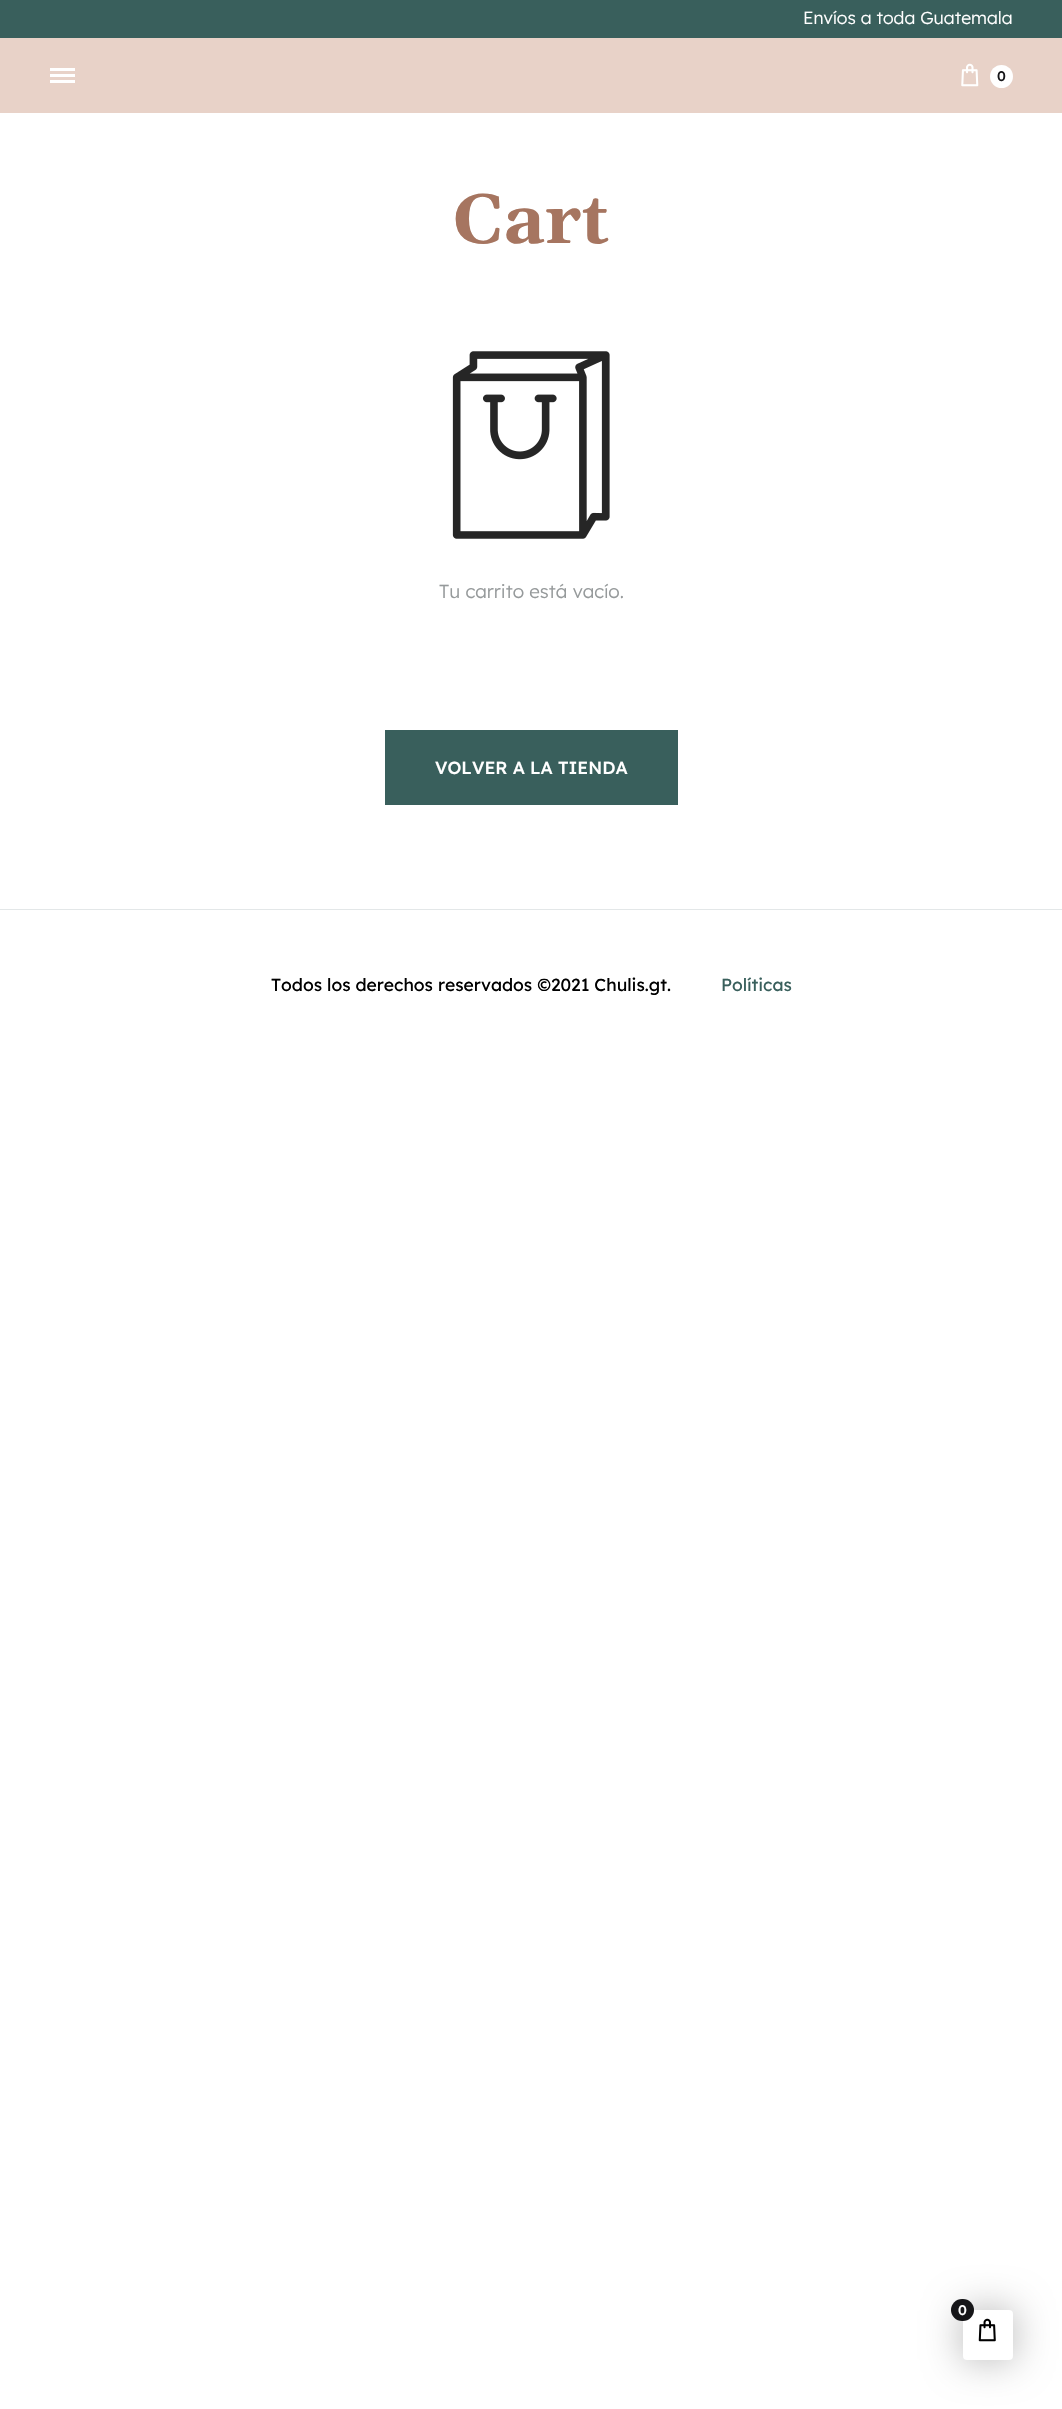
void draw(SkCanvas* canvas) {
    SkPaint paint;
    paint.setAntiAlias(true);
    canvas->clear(0xFFFFFFFF);
    paint.setColor(0xFF395F5C);
    canvas->drawRect(SkRect::MakeXYWH(0, 0, 1062, 38), paint);
    SkFont font1(fontMgr->matchFamilyStyle("Lexend", SkFontStyle(300, SkFontStyle::kNormal_Width, SkFontStyle::kUpright_Slant)), 17.5f);
    font1.setSubpixel(true);
    paint.setColor(0xFFFFFFFF);
    canvas->drawString("Envíos a toda Guatemala", 803, 24, font1, paint);
    paint.setColor(0xFFE8D2C8);
    canvas->drawRect(SkRect::MakeXYWH(0, 38, 1062, 75), paint);
    paint.setColor(0xFFFFFFFF);
    canvas->drawRect(SkRect::MakeXYWH(50, 74, 25, 3), paint);
    canvas->drawRect(SkRect::MakeXYWH(50, 68, 25, 3), paint);
    canvas->drawRect(SkRect::MakeXYWH(50, 80, 25, 3), paint);
    canvas->drawImageRect(SkImages::DeferredFromEncodedData(SkData::MakeFromFileName("img1.png")), SkRect::MakeXYWH(961, 63, 18, 24), SkSamplingOptions());
    canvas->drawCircle(1001.5f, 76.5f, 11.5f, paint);
    SkFont font2(fontMgr->matchFamilyStyle("Lexend", SkFontStyle(500, SkFontStyle::kNormal_Width, SkFontStyle::kUpright_Slant)), 14);
    font2.setSubpixel(true);
    paint.setColor(0xFF161619);
    canvas->drawString("0", 997, 81, font2, paint);
    SkFont font3(fontMgr->matchFamilyStyle("Gelasio", SkFontStyle::Bold()), 70);
    font3.setSubpixel(true);
    paint.setColor(0xFFA67560);
    canvas->drawString("Cart", 453, 243, font3, paint);
    canvas->drawImageRect(SkImages::DeferredFromEncodedData(SkData::MakeFromFileName("img2.png")), SkRect::MakeXYWH(452, 351, 158, 188), SkSamplingOptions());
    SkFont font4(fontMgr->matchFamilyStyle("Lexend", SkFontStyle(300, SkFontStyle::kNormal_Width, SkFontStyle::kUpright_Slant)), 18.75f);
    font4.setSubpixel(true);
    paint.setColor(0xFF969A9B);
    canvas->drawString("Tu carrito está vacío.", 439, 598, font4, paint);
    paint.setColor(0xFF395F5C);
    canvas->drawRect(SkRect::MakeXYWH(385, 730, 293, 75), paint);
    SkFont font5(fontMgr->matchFamilyStyle("Lexend", SkFontStyle(500, SkFontStyle::kNormal_Width, SkFontStyle::kUpright_Slant)), 17.5f);
    font5.setSubpixel(true);
    paint.setColor(0xFFFFFFFF);
    canvas->drawString("VOLVER A LA TIENDA", 435, 774, font5, paint);
    paint.setColor(0xFFE3E7E8);
    canvas->drawRect(SkRect::MakeXYWH(0, 909, 1062, 1), paint);
    SkFont font6(fontMgr->matchFamilyStyle("Lexend", SkFontStyle::Normal()), 17.5f);
    font6.setSubpixel(true);
    paint.setColor(0xFF000000);
    canvas->drawString("Todos los derechos reservados ©2021 Chulis.gt.", 271, 991, font6, paint);
    paint.setColor(0xFF395F5C);
    canvas->drawString("Políticas", 721, 991, font6, paint);
    paint.setColor(0x4D000000);
    paint.setMaskFilter(SkMaskFilter::MakeBlur(kNormal_SkBlurStyle, 19));
    canvas->drawRoundRect(SkRect::MakeXYWH(963, 2310, 50, 50), 4, 4, paint);
    paint.setMaskFilter(nullptr);
    paint.setColor(0xFFFFFFFF);
    canvas->drawRoundRect(SkRect::MakeXYWH(963, 2310, 50, 50), 4, 4, paint);
    paint.setColor(0xFF161619);
    canvas->drawRoundRect(SkRect::MakeXYWH(951, 2299, 23, 22), 11, 11, paint);
    paint.setColor(0xFFFFFFFF);
    canvas->drawString("0", 958, 2315, font2, paint);
    canvas->drawImageRect(SkImages::DeferredFromEncodedData(SkData::MakeFromFileName("img3.png")), SkRect::MakeXYWH(978, 2318, 18, 24), SkSamplingOptions());
}
